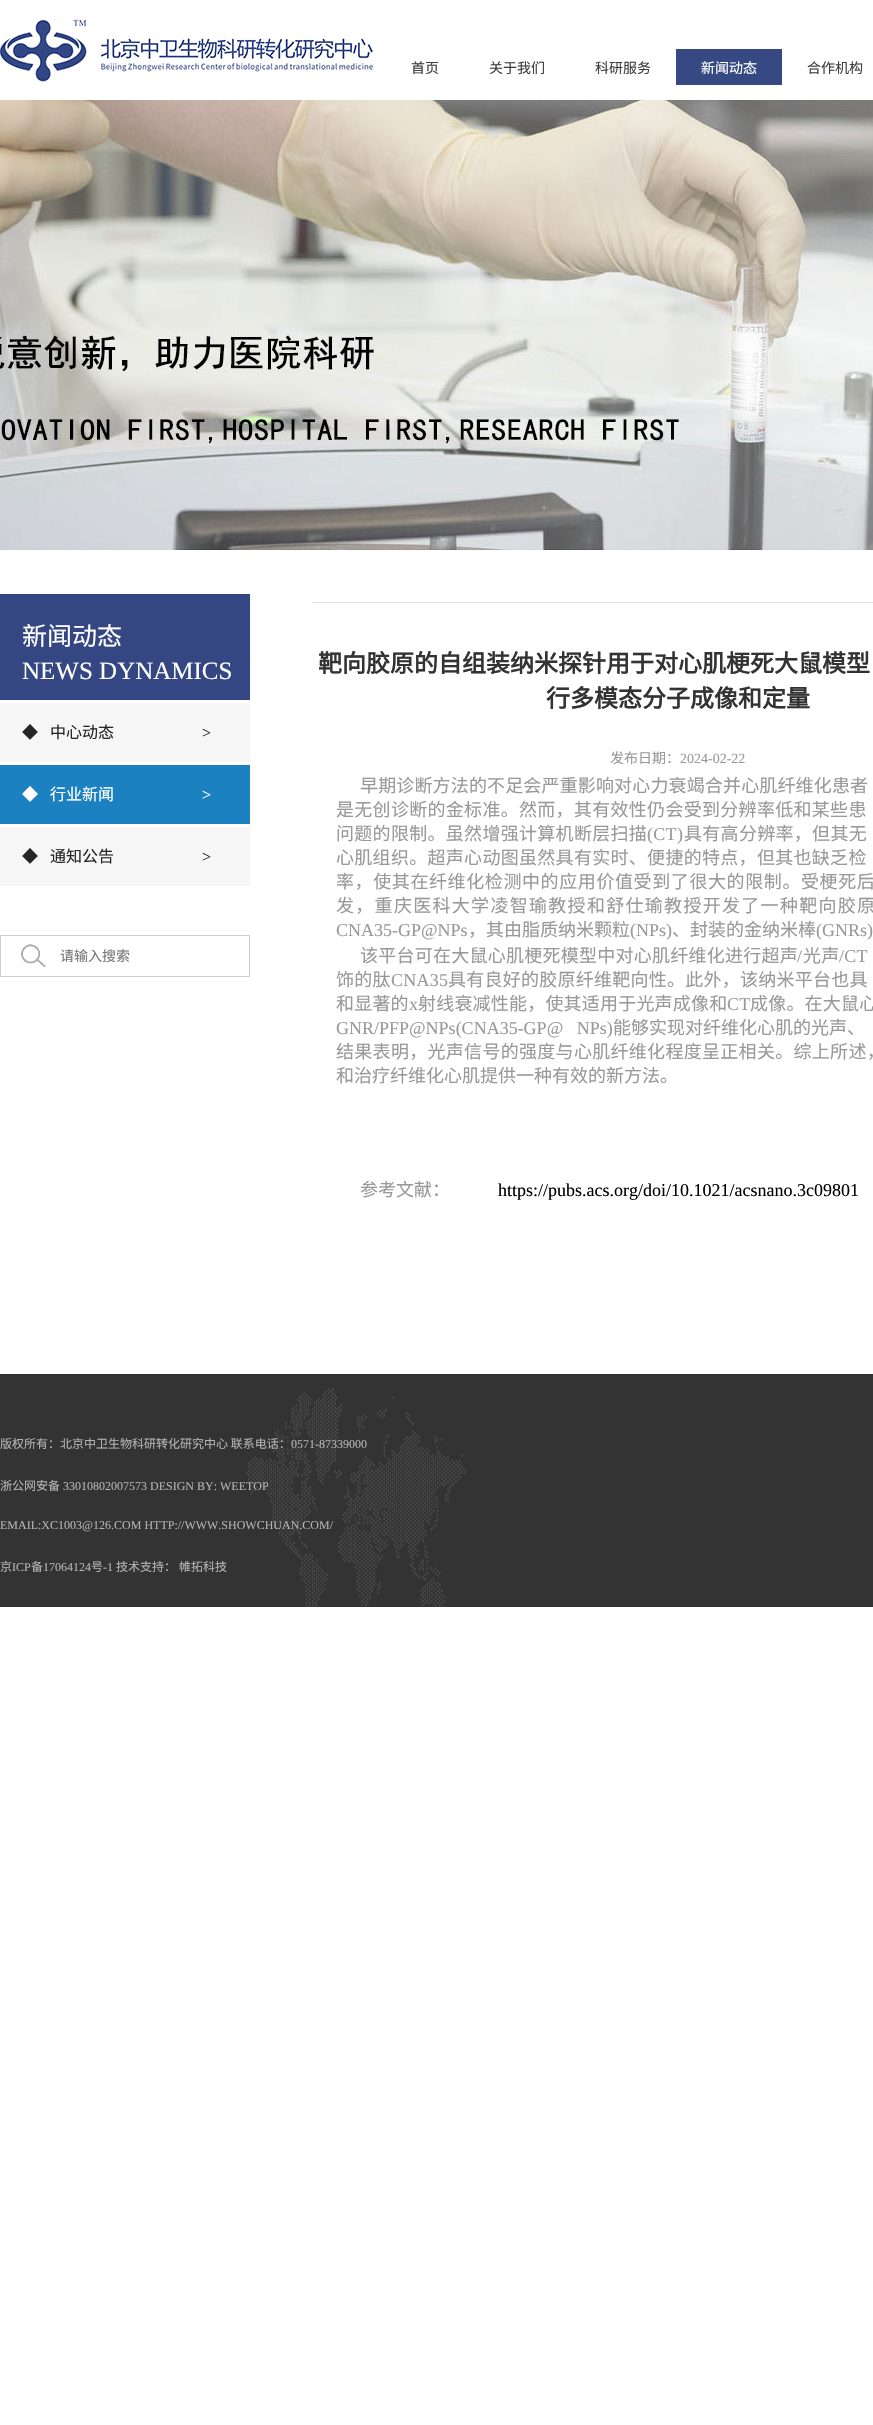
void draw(SkCanvas* canvas) {
    SkPaint paint;
    paint.setAntiAlias(true);
    auto spacedText = [&](const char* s, float x, float y, const SkFont& font, const SkPaint& ink, float letter, float word) {
        std::vector<SkGlyphID> glyphs(font.countText(s, strlen(s), SkTextEncoding::kUTF8));
        std::vector<float> xs(glyphs.size());
        font.textToGlyphs(s, strlen(s), SkTextEncoding::kUTF8, glyphs);
        font.getXPos(glyphs, xs, x);
        float extra = 0;
        for (size_t i = 0; i < glyphs.size(); i++) {
            xs[i] += extra;
            extra += letter + word * (glyphs[i] == font.unicharToGlyph(' '));
        }
        canvas->drawTextBlob(SkTextBlob::MakeFromPosHGlyphs(glyphs, xs, y, font), 0, 0, ink);
    };
    canvas->clear(0xFFFFFFFF);
    canvas->drawImageRect(SkImages::DeferredFromEncodedData(SkData::MakeFromFileName("img1.png")), SkRect::MakeXYWH(0, 19, 373, 63), SkSamplingOptions());
    SkFont font1(fontMgr->matchFamilyStyle("Noto Sans CJK SC", SkFontStyle::Normal()), 14);
    font1.setSubpixel(true);
    paint.setColor(0xFF3E3E3E);
    canvas->drawString("首页", 411, 73, font1, paint);
    canvas->drawString("关于我们", 489, 73, font1, paint);
    canvas->drawString("科研服务", 595, 73, font1, paint);
    paint.setColor(0xFF374983);
    canvas->drawRect(SkRect::MakeXYWH(676, 49, 106, 36), paint);
    paint.setColor(0xFFFFFFFF);
    canvas->drawString("新闻动态", 701, 73, font1, paint);
    paint.setColor(0xFF3E3E3E);
    canvas->drawString("合作机构", 807, 73, font1, paint);
    canvas->drawImageRect(SkImages::DeferredFromEncodedData(SkData::MakeFromFileName("img2.png")), SkRect::MakeXYWH(0, 100, 873, 450), SkSamplingOptions());
    paint.setColor(0xFF344783);
    canvas->drawRect(SkRect::MakeXYWH(0, 594, 250, 106), paint);
    SkFont font2(fontMgr->matchFamilyStyle("Noto Sans CJK SC", SkFontStyle::Normal()), 25);
    font2.setSubpixel(true);
    paint.setColor(0xFFFFFFFF);
    canvas->drawString("新闻动态", 22, 645, font2, paint);
    SkFont font3(fontMgr->matchFamilyStyle("Liberation Serif", SkFontStyle::Normal()), 25);
    font3.setSubpixel(true);
    canvas->drawString("NEWS DYNAMICS", 22, 679, font3, paint);
    paint.setColor(0xFFF6F6F6);
    canvas->drawRect(SkRect::MakeXYWH(0, 703, 250, 59), paint);
    SkFont font4(fontMgr->matchFamilyStyle("Noto Sans CJK SC", SkFontStyle::Normal()), 16);
    font4.setSubpixel(true);
    paint.setColor(0xFF262626);
    canvas->drawString("◆", 22, 738, font4, paint);
    canvas->drawString("中心动态", 50, 738, font4, paint);
    SkFont font5(fontMgr->matchFamilyStyle("Liberation Serif", SkFontStyle::Normal()), 16);
    font5.setSubpixel(true);
    canvas->drawString(">", 202, 738, font5, paint);
    paint.setColor(0xFF1C81C1);
    canvas->drawRect(SkRect::MakeXYWH(0, 765, 250, 59), paint);
    paint.setColor(0xFFFFFFFF);
    canvas->drawString("◆", 22, 800, font4, paint);
    canvas->drawString("行业新闻", 50, 800, font4, paint);
    canvas->drawString(">", 202, 800, font5, paint);
    paint.setColor(0xFFF6F6F6);
    canvas->drawRect(SkRect::MakeXYWH(0, 827, 250, 59), paint);
    paint.setColor(0xFF262626);
    canvas->drawString("◆", 22, 862, font4, paint);
    canvas->drawString("通知公告", 50, 862, font4, paint);
    canvas->drawString(">", 202, 862, font5, paint);
    paint.setStyle(SkPaint::kStroke_Style);
    paint.setStrokeWidth(1);
    paint.setColor(0xFFCECECE);
    canvas->drawRect(SkRect::MakeXYWH(0.5f, 935.5f, 249, 41), paint);
    canvas->drawImageRect(SkImages::DeferredFromEncodedData(SkData::MakeFromFileName("img3.png")), SkRect::MakeXYWH(21, 944, 25, 24), SkSamplingOptions());
    paint.setStyle(SkPaint::kFill_Style);
    paint.setColor(0xFF757575);
    canvas->drawString("请输入搜索", 60, 961, font1, paint);
    paint.setColor(0xFFE2E2E2);
    canvas->drawRect(SkRect::MakeXYWH(312, 602, 561, 1), paint);
    SkFont font6(fontMgr->matchFamilyStyle("Noto Sans CJK SC", SkFontStyle::Bold()), 24);
    font6.setSubpixel(true);
    paint.setColor(0xFF333333);
    canvas->drawString("靶向胶原的自组装纳米探针用于对心肌梗死大鼠模型", 318, 672, font6, paint);
    canvas->drawString("行多模态分子成像和定量", 546, 707, font6, paint);
    paint.setColor(0xFF999999);
    canvas->drawString("发布日期：", 610, 763, font1, paint);
    SkFont font7(fontMgr->matchFamilyStyle("Liberation Serif", SkFontStyle::Normal()), 14);
    font7.setSubpixel(true);
    canvas->drawString("2024-02-22", 680, 763, font7, paint);
    SkFont font8(fontMgr->matchFamilyStyle("Noto Sans CJK SC", SkFontStyle::Normal()), 18);
    font8.setSubpixel(true);
    spacedText("早期诊断方法的不足会严重影响对心力衰竭合并心肌纤维化患者", 360, 792, font8, paint, 0.15f, 0);
    spacedText("是无创诊断的金标准。然而，其有效性仍会受到分辨率低和某些患", 336, 816, font8, paint, 0.3f, 0);
    spacedText("问题的限制。虽然增强计算机断层扫描", 336, 840, font8, paint, 0.3f, 0);
    SkFont font9(fontMgr->matchFamilyStyle("Liberation Serif", SkFontStyle::Normal()), 18);
    font9.setSubpixel(true);
    spacedText("(CT)", 647, 840, font9, paint, 0.3f, 0);
    spacedText("具有高分辨率，但其无", 684, 840, font8, paint, 0.3f, 0);
    spacedText("心肌组织。超声心动图虽然具有实时、便捷的特点，但其也缺乏检", 336, 864, font8, paint, 0.3f, 0);
    spacedText("率，使其在纤维化检测中的应用价值受到了很大的限制。受梗死后", 336, 888, font8, paint, 0.6f, 0);
    spacedText("发，重庆医科大学凌智瑜教授和舒仕瑜教授开发了一种靶向胶原", 336, 912, font8, paint, 1.3f, 0);
    canvas->drawString("CNA35-GP@NPs", 336, 936, font9, paint);
    canvas->drawString("，其由脂质纳米颗粒", 468, 936, font8, paint);
    canvas->drawString("(NPs)", 630, 936, font9, paint);
    canvas->drawString("、封装的金纳米棒", 672, 936, font8, paint);
    canvas->drawString("(GNRs)", 816, 936, font9, paint);
    spacedText("该平台可在大鼠心肌梗死模型中对心肌纤维化进行超声", 360, 962, font8, paint, 0.25f, 0);
    spacedText("/", 797, 962, font9, paint, 0.25f, 0);
    spacedText("光声", 803, 962, font8, paint, 0.25f, 0);
    spacedText("/CT", 839, 962, font9, paint, 0.25f, 0);
    spacedText("饰的肽", 336, 986, font8, paint, 0.25f, 0);
    spacedText("CNA35", 391, 986, font9, paint, 0.25f, 0);
    spacedText("具有良好的胶原纤维靶向性。此外，该纳米平台也具", 448, 986, font8, paint, 0.25f, 0);
    spacedText("和显著的", 336, 1010, font8, paint, 0.2f, 0);
    spacedText("x", 409, 1010, font9, paint, 0.2f, 0);
    spacedText("射线衰减性能，使其适用于光声成像和", 418, 1010, font8, paint, 0.2f, 0);
    spacedText("CT", 727, 1010, font9, paint, 0.2f, 0);
    spacedText("成像。在大鼠心", 750, 1010, font8, paint, 0.2f, 0);
    spacedText("GNR/PFP@NPs(CNA35-GP@ NPs)", 336, 1034, font9, paint, 0, 9);
    canvas->drawString("能够实现对纤维化心肌的光声、", 613, 1034, font8, paint);
    spacedText("结果表明，光声信号的强度与心肌纤维化程度呈正相关。综上所述，", 336, 1058, font8, paint, 0.3f, 0);
    canvas->drawString("和治疗纤维化心肌提供一种有效的新方法。", 336, 1082, font8, paint);
    canvas->drawString("参考文献：", 360, 1196, font8, paint);
    paint.setColor(0xFF000000);
    canvas->drawString("https://pubs.acs.org/doi/10.1021/acsnano.3c09801", 498, 1196, font9, paint);
    canvas->drawImageRect(SkImages::DeferredFromEncodedData(SkData::MakeFromFileName("img4.png")), SkRect::MakeXYWH(0, 1374, 873, 233), SkSamplingOptions());
    SkFont font10(fontMgr->matchFamilyStyle("Noto Sans CJK SC", SkFontStyle::Normal()), 12);
    font10.setSubpixel(true);
    paint.setColor(0xFFB3B3B3);
    canvas->drawString("版权所有：北京中卫生物科研转化研究中心 联系电话：", 0, 1448, font10, paint);
    SkFont font11(fontMgr->matchFamilyStyle("Liberation Serif", SkFontStyle::Normal()), 12);
    font11.setSubpixel(true);
    canvas->drawString("0571-87339000", 291, 1448, font11, paint);
    canvas->drawString("浙公网安备", 0, 1490, font10, paint);
    canvas->drawString("33010802007573 DESIGN BY: WEETOP", 63, 1490, font11, paint);
    canvas->drawString("EMAIL:XC1003@126.COM HTTP://WWW.SHOWCHUAN.COM/", 0, 1529, font11, paint);
    canvas->drawString("京", 0, 1571, font10, paint);
    canvas->drawString("ICP", 12, 1571, font11, paint);
    canvas->drawString("备", 31, 1571, font10, paint);
    canvas->drawString("17064124", 43, 1571, font11, paint);
    canvas->drawString("号", 91, 1571, font10, paint);
    canvas->drawString("-1", 103, 1571, font11, paint);
    canvas->drawString("技术支持：", 116, 1571, font10, paint);
    canvas->drawString("帷拓科技", 179, 1571, font10, paint);
}
